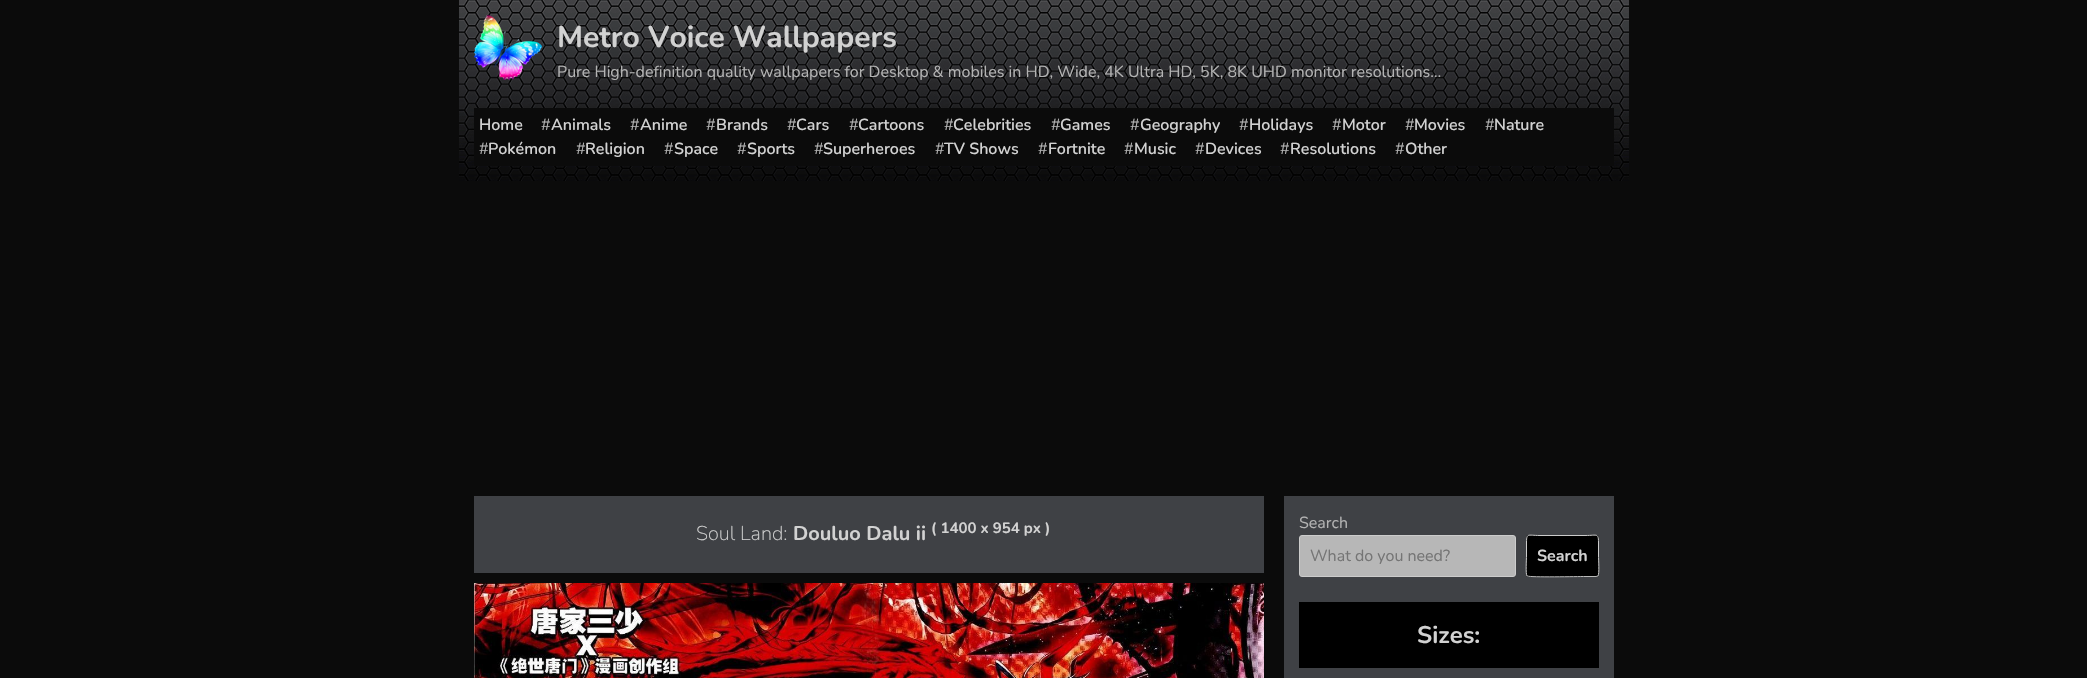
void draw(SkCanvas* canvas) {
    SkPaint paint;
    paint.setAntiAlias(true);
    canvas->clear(0xFF0B0B0B);
    canvas->drawImageRect(SkImages::DeferredFromEncodedData(SkData::MakeFromFileName("img1.png")), SkRect::MakeXYWH(459, 0, 1170, 181), SkSamplingOptions());
    canvas->drawImageRect(SkImages::DeferredFromEncodedData(SkData::MakeFromFileName("img2.png")), SkRect::MakeXYWH(474, 15, 68, 65), SkSamplingOptions());
    SkFont font1(fontMgr->matchFamilyStyle("Nunito", SkFontStyle::Bold()), 30);
    font1.setSubpixel(true);
    paint.setColor(0xFFD2D2D2);
    canvas->drawString("Metro Voice Wallpapers", 557, 47, font1, paint);
    SkFont font2(fontMgr->matchFamilyStyle("Nunito", SkFontStyle::Normal()), 16);
    font2.setSubpixel(true);
    paint.setColor(0xFFB3B3B3);
    canvas->drawString("Pure High-definition quality wallpapers for Desktop & mobiles in HD, Wide, 4K Ultra HD, 5K, 8K UHD monitor resolutions…", 557, 77, font2, paint);
    paint.setColor(0xFF0B0B0B);
    canvas->drawRect(SkRect::MakeXYWH(474, 108, 1140, 58), paint);
    SkFont font3(fontMgr->matchFamilyStyle("Nunito", SkFontStyle(600, SkFontStyle::kNormal_Width, SkFontStyle::kUpright_Slant)), 16);
    font3.setSubpixel(true);
    paint.setColor(0xFFD2D2D2);
    canvas->drawString("Home", 479, 130, font3, paint);
    paint.setColor(0xFFB3B3B3);
    canvas->drawString("#", 541, 130, font2, paint);
    paint.setColor(0xFFD2D2D2);
    canvas->drawString("Animals", 551, 130, font3, paint);
    paint.setColor(0xFFB3B3B3);
    canvas->drawString("#", 630, 130, font2, paint);
    paint.setColor(0xFFD2D2D2);
    canvas->drawString("Anime", 640, 130, font3, paint);
    paint.setColor(0xFFB3B3B3);
    canvas->drawString("#", 706, 130, font2, paint);
    paint.setColor(0xFFD2D2D2);
    canvas->drawString("Brands", 716, 130, font3, paint);
    paint.setColor(0xFFB3B3B3);
    canvas->drawString("#", 787, 130, font2, paint);
    paint.setColor(0xFFD2D2D2);
    canvas->drawString("Cars", 796, 130, font3, paint);
    paint.setColor(0xFFB3B3B3);
    canvas->drawString("#", 849, 130, font2, paint);
    paint.setColor(0xFFD2D2D2);
    canvas->drawString("Cartoons", 858, 130, font3, paint);
    paint.setColor(0xFFB3B3B3);
    canvas->drawString("#", 944, 130, font2, paint);
    paint.setColor(0xFFD2D2D2);
    canvas->drawString("Celebrities", 953, 130, font3, paint);
    paint.setColor(0xFFB3B3B3);
    canvas->drawString("#", 1051, 130, font2, paint);
    paint.setColor(0xFFD2D2D2);
    canvas->drawString("Games", 1060, 130, font3, paint);
    paint.setColor(0xFFB3B3B3);
    canvas->drawString("#", 1130, 130, font2, paint);
    paint.setColor(0xFFD2D2D2);
    canvas->drawString("Geography", 1140, 130, font3, paint);
    paint.setColor(0xFFB3B3B3);
    canvas->drawString("#", 1239, 130, font2, paint);
    paint.setColor(0xFFD2D2D2);
    canvas->drawString("Holidays", 1249, 130, font3, paint);
    paint.setColor(0xFFB3B3B3);
    canvas->drawString("#", 1332, 130, font2, paint);
    paint.setColor(0xFFD2D2D2);
    canvas->drawString("Motor", 1342, 130, font3, paint);
    paint.setColor(0xFFB3B3B3);
    canvas->drawString("#", 1405, 130, font2, paint);
    paint.setColor(0xFFD2D2D2);
    canvas->drawString("Movies", 1414, 130, font3, paint);
    paint.setColor(0xFFB3B3B3);
    canvas->drawString("#", 1485, 130, font2, paint);
    paint.setColor(0xFFD2D2D2);
    canvas->drawString("Nature", 1494, 130, font3, paint);
    paint.setColor(0xFFB3B3B3);
    canvas->drawString("#", 479, 154, font2, paint);
    paint.setColor(0xFFD2D2D2);
    canvas->drawString("Pokémon", 488, 154, font3, paint);
    paint.setColor(0xFFB3B3B3);
    canvas->drawString("#", 576, 154, font2, paint);
    paint.setColor(0xFFD2D2D2);
    canvas->drawString("Religion", 585, 154, font3, paint);
    paint.setColor(0xFFB3B3B3);
    canvas->drawString("#", 664, 154, font2, paint);
    paint.setColor(0xFFD2D2D2);
    canvas->drawString("Space", 674, 154, font3, paint);
    paint.setColor(0xFFB3B3B3);
    canvas->drawString("#", 737, 154, font2, paint);
    paint.setColor(0xFFD2D2D2);
    canvas->drawString("Sports", 747, 154, font3, paint);
    paint.setColor(0xFFB3B3B3);
    canvas->drawString("#", 814, 154, font2, paint);
    paint.setColor(0xFFD2D2D2);
    canvas->drawString("Superheroes", 823, 154, font3, paint);
    paint.setColor(0xFFB3B3B3);
    canvas->drawString("#", 935, 154, font2, paint);
    paint.setColor(0xFFD2D2D2);
    canvas->drawString("TV Shows", 944, 154, font3, paint);
    paint.setColor(0xFFB3B3B3);
    canvas->drawString("#", 1038, 154, font2, paint);
    paint.setColor(0xFFD2D2D2);
    canvas->drawString("Fortnite", 1048, 154, font3, paint);
    paint.setColor(0xFFB3B3B3);
    canvas->drawString("#", 1124, 154, font2, paint);
    paint.setColor(0xFFD2D2D2);
    canvas->drawString("Music", 1134, 154, font3, paint);
    paint.setColor(0xFFB3B3B3);
    canvas->drawString("#", 1195, 154, font2, paint);
    paint.setColor(0xFFD2D2D2);
    canvas->drawString("Devices", 1205, 154, font3, paint);
    paint.setColor(0xFFB3B3B3);
    canvas->drawString("#", 1280, 154, font2, paint);
    paint.setColor(0xFFD2D2D2);
    canvas->drawString("Resolutions", 1290, 154, font3, paint);
    paint.setColor(0xFFB3B3B3);
    canvas->drawString("#", 1395, 154, font2, paint);
    paint.setColor(0xFFD2D2D2);
    canvas->drawString("Other", 1405, 154, font3, paint);
    paint.setColor(0xFF3F4145);
    canvas->drawRect(SkRect::MakeXYWH(474, 496, 790, 77), paint);
    SkFont font4(fontMgr->matchFamilyStyle("Nunito", SkFontStyle(200, SkFontStyle::kNormal_Width, SkFontStyle::kUpright_Slant)), 20);
    font4.setSubpixel(true);
    paint.setColor(0xFFD2D2D2);
    canvas->drawString("Soul Land:", 696, 540, font4, paint);
    SkFont font5(fontMgr->matchFamilyStyle("Nunito", SkFontStyle::Bold()), 20);
    font5.setSubpixel(true);
    canvas->drawString("Douluo Dalu ii", 793, 540, font5, paint);
    SkFont font6(fontMgr->matchFamilyStyle("Nunito", SkFontStyle::Bold()), 15);
    font6.setSubpixel(true);
    canvas->drawString("( 1400 x 954 px )", 931, 533, font6, paint);
    canvas->drawImageRect(SkImages::DeferredFromEncodedData(SkData::MakeFromFileName("img3.png")), SkRect::MakeXYWH(474, 583, 790, 95), SkSamplingOptions());
    paint.setColor(0xFF3F4145);
    canvas->drawRect(SkRect::MakeXYWH(1284, 496, 330, 182), paint);
    paint.setColor(0xFFB3B3B3);
    canvas->drawString("Search", 1299, 528, font2, paint);
    paint.setColor(0xFFB7B7B7);
    canvas->drawRoundRect(SkRect::MakeXYWH(1299.5f, 535.5f, 216, 41), 2.5f, 2.5f, paint);
    paint.setStyle(SkPaint::kStroke_Style);
    paint.setStrokeWidth(1);
    paint.setColor(0xFFCCCCCC);
    canvas->drawRoundRect(SkRect::MakeXYWH(1299.5f, 535.5f, 216, 41), 2.5f, 2.5f, paint);
    paint.setStyle(SkPaint::kFill_Style);
    paint.setColor(0xFF757575);
    canvas->drawString("What do you need?", 1310, 561, font2, paint);
    paint.setColor(0xFF000000);
    canvas->drawRoundRect(SkRect::MakeXYWH(1526, 535, 73, 42), 3, 3, paint);
    paint.setStyle(SkPaint::kStroke_Style);
    paint.setColor(0xFFBBBBBB);
    canvas->drawPath(SkPathBuilder().moveTo(1598, 576).lineTo(1596, 576.5f).lineTo(1585, 576.5f).cubicTo(1578.5f, 576.5f, 1529.5f, 577.5f, 1527.5f, 576).lineTo(1527, 576).detach(), paint);
    paint.setColor(0xFFCCCCCC);
    canvas->drawPath(SkPathBuilder().moveTo(1527, 576).cubicTo(1525.5f, 574, 1526.5f, 559, 1526.5f, 556).lineTo(1526.5f, 544).cubicTo(1526.5f, 532.5f, 1527, 535.5f, 1540, 535.5f).lineTo(1585, 535.5f).cubicTo(1598, 535.5f, 1598.5f, 532.5f, 1598.5f, 544).lineTo(1598.5f, 556).cubicTo(1598.5f, 559, 1599.5f, 574, 1598, 576).detach(), paint);
    SkFont font7(fontMgr->matchFamilyStyle("Nunito", SkFontStyle::Bold()), 16);
    font7.setSubpixel(true);
    paint.setStyle(SkPaint::kFill_Style);
    paint.setColor(0xFFD2D2D2);
    canvas->drawString("Search", 1537, 561, font7, paint);
    paint.setColor(0xFF000000);
    canvas->drawRect(SkRect::MakeXYWH(1299, 602, 300, 66), paint);
    SkFont font8(fontMgr->matchFamilyStyle("Nunito", SkFontStyle::Bold()), 24);
    font8.setSubpixel(true);
    paint.setColor(0xFFD2D2D2);
    canvas->drawString("Sizes:", 1417, 643, font8, paint);
}
